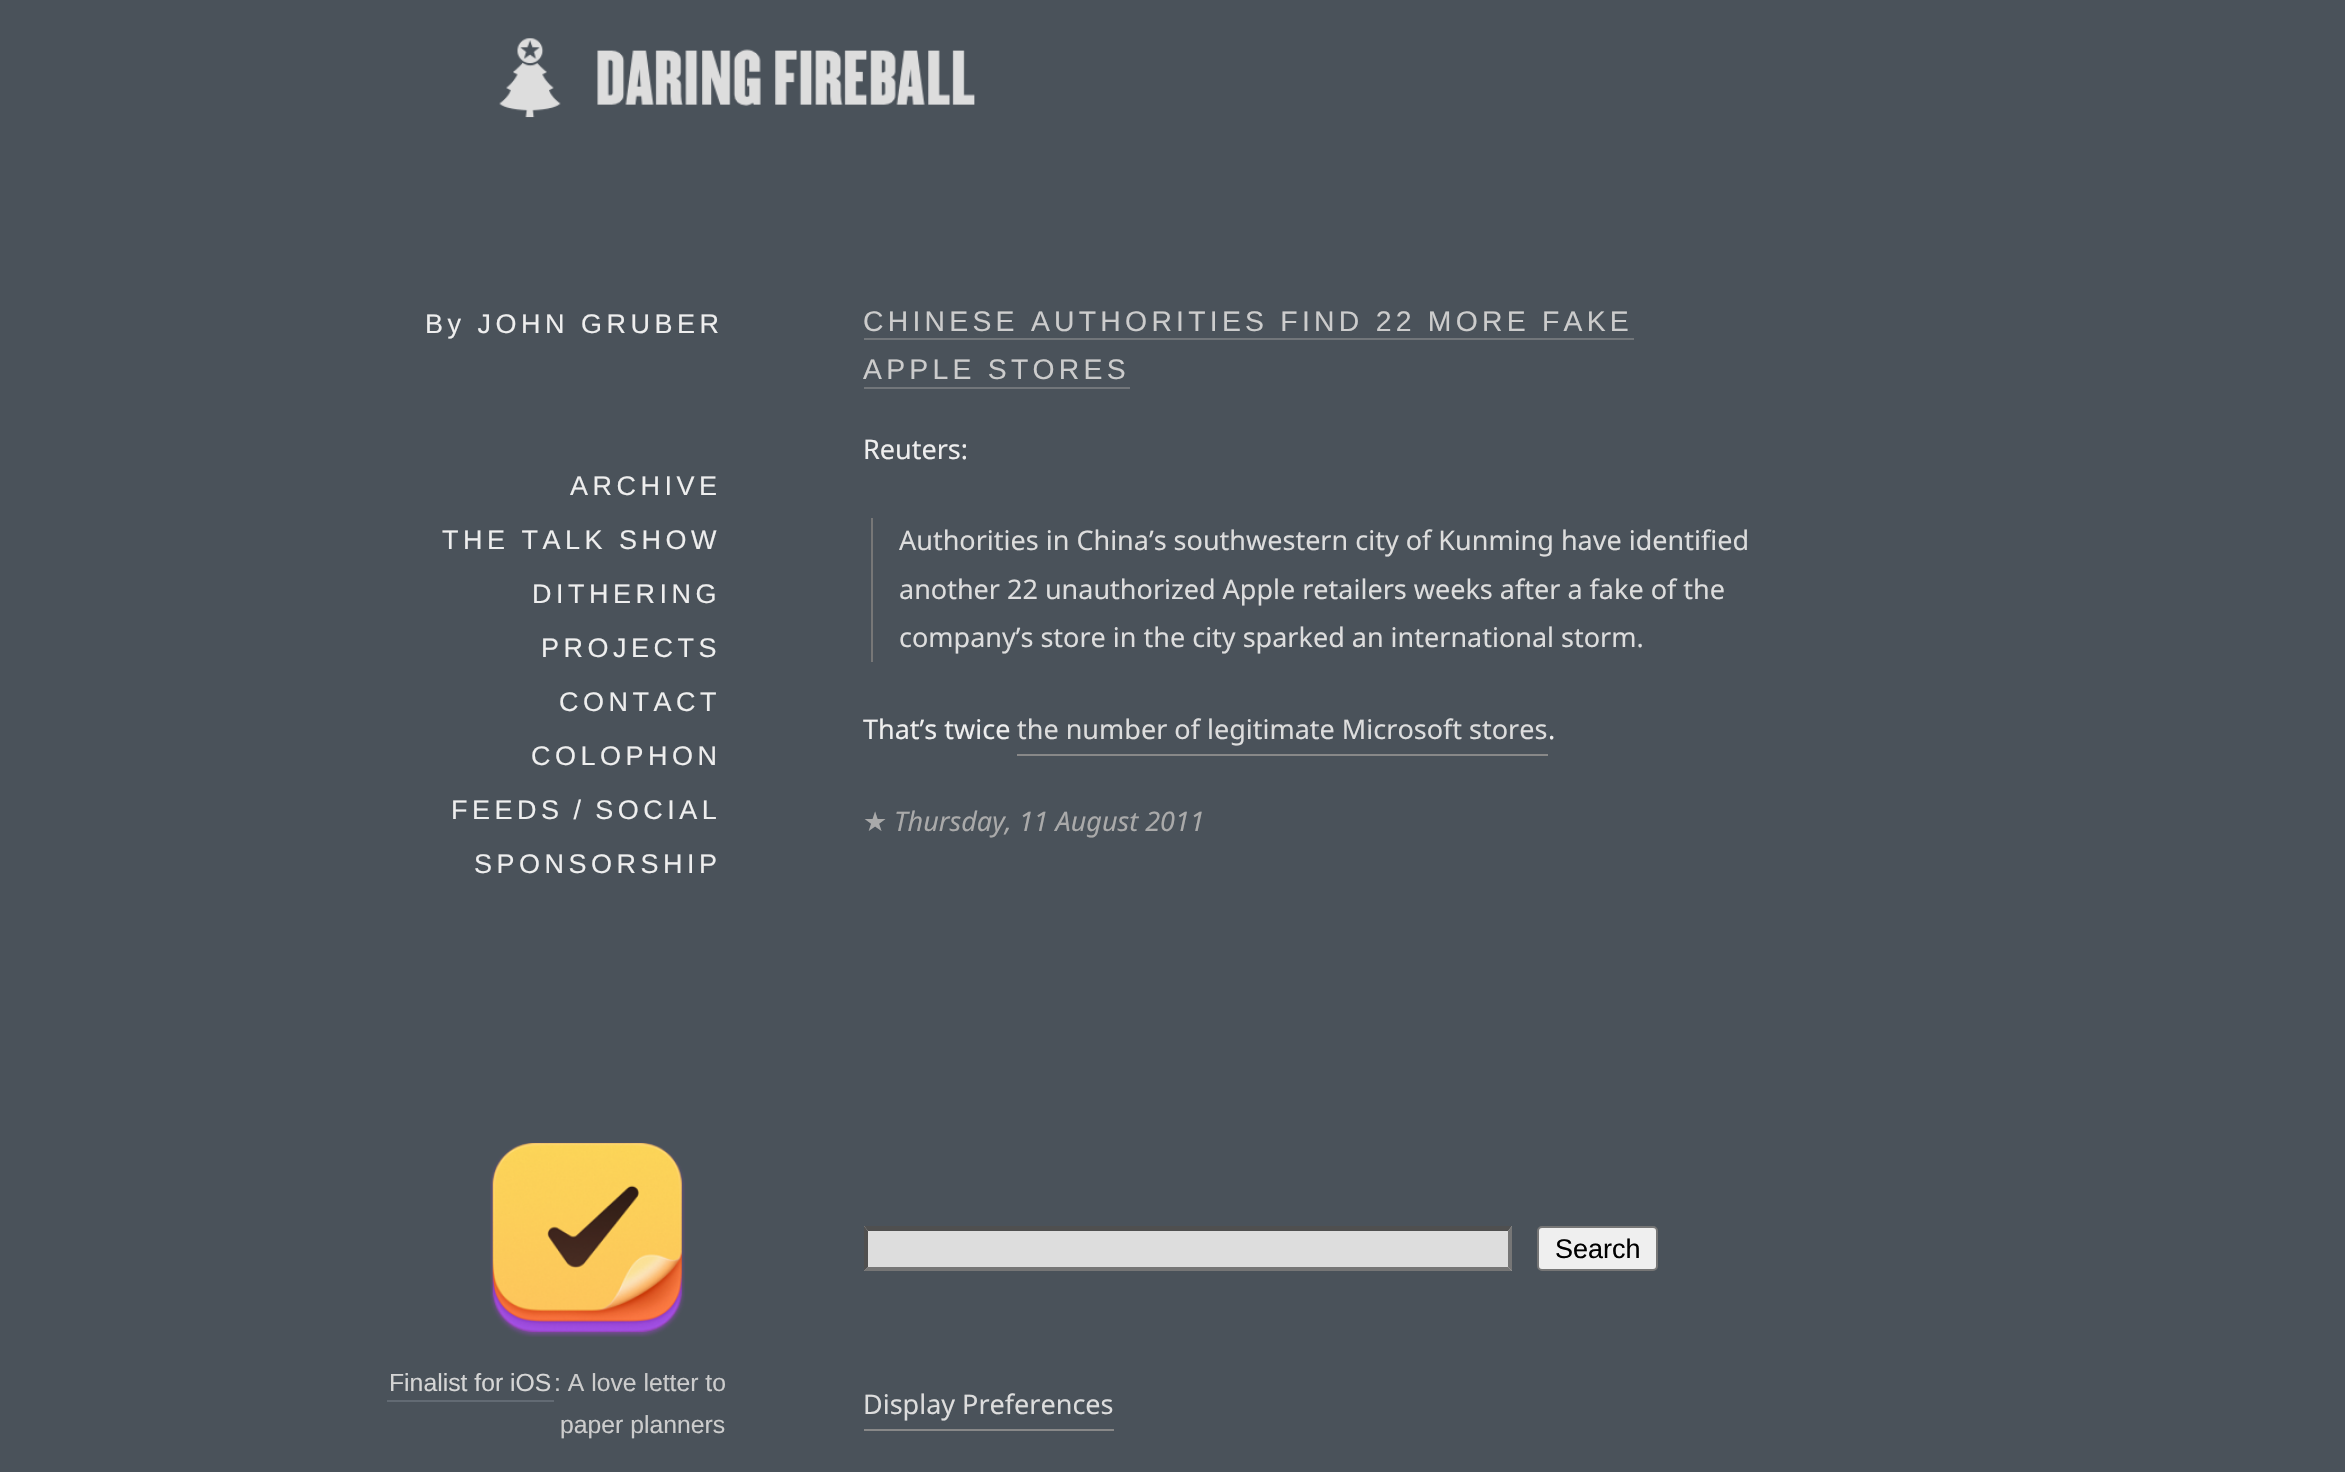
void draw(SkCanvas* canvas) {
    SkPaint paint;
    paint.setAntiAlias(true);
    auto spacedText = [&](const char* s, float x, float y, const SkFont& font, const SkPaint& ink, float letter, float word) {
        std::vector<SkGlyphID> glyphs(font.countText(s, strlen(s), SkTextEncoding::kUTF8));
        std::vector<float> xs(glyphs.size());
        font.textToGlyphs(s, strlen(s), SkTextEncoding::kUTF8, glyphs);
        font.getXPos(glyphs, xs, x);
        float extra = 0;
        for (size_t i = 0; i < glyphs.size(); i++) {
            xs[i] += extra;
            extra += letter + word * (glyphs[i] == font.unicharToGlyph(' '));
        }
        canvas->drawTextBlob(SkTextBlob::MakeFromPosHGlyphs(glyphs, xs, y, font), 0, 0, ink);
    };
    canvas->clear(0xFF4A525A);
    canvas->drawImageRect(SkImages::DeferredFromEncodedData(SkData::MakeFromFileName("img1.png")), SkRect::MakeXYWH(499, 38, 476, 80), SkSamplingOptions());
    SkFont font1(fontMgr->matchFamilyStyle("Liberation Sans", SkFontStyle::Normal()), 27);
    font1.setSubpixel(true);
    paint.setColor(0xFFEEEEEE);
    spacedText("By JOHN GRUBER", 425, 333, font1, paint, 4.5f, 0);
    spacedText("ARCHIVE", 570, 495, font1, paint, 4.5f, 0);
    spacedText("THE TALK SHOW", 442, 549, font1, paint, 4.5f, 0);
    spacedText("DITHERING", 532, 603, font1, paint, 4.5f, 0);
    spacedText("PROJECTS", 541, 657, font1, paint, 4.5f, 0);
    spacedText("CONTACT", 559, 711, font1, paint, 4.5f, 0);
    spacedText("COLOPHON", 531, 765, font1, paint, 4.5f, 0);
    spacedText("FEEDS / SOCIAL", 451, 819, font1, paint, 4.5f, 0);
    spacedText("SPONSORSHIP", 474, 873, font1, paint, 4.5f, 0);
    canvas->drawImageRect(SkImages::DeferredFromEncodedData(SkData::MakeFromFileName("img2.png")), SkRect::MakeXYWH(490, 1142, 195, 195), SkSamplingOptions());
    SkFont font2(fontMgr->matchFamilyStyle("Liberation Sans", SkFontStyle::Normal()), 24.75f);
    font2.setSubpixel(true);
    paint.setColor(0xFFD5D5D5);
    canvas->drawString("Finalist for iOS", 389, 1391, font2, paint);
    paint.setColor(0xFF626A73);
    canvas->drawRect(SkRect::MakeXYWH(387, 1400, 167, 2), paint);
    paint.setColor(0xFFCCCCCC);
    canvas->drawString(": A love letter to", 554, 1391, font2, paint);
    canvas->drawString("paper planners", 560, 1433, font2, paint);
    SkFont font3(fontMgr->matchFamilyStyle("Liberation Sans", SkFontStyle::Normal()), 28.35f);
    font3.setSubpixel(true);
    spacedText("CHINESE AUTHORITIES FIND 22 MORE FAKE", 863, 331, font3, paint, 4.25f, 0);
    paint.setColor(0xFF72767A);
    canvas->drawRect(SkRect::MakeXYWH(864, 338, 770, 2), paint);
    paint.setColor(0xFFCCCCCC);
    spacedText("APPLE STORES", 863, 379, font3, paint, 4.25f, 0);
    paint.setColor(0xFF72767A);
    canvas->drawRect(SkRect::MakeXYWH(864, 387, 266, 2), paint);
    SkFont font4(fontMgr->matchFamilyStyle("Noto Sans", SkFontStyle::Normal()), 27);
    font4.setSubpixel(true);
    paint.setColor(0xFFEEEEEE);
    canvas->drawString("Reuters:", 863, 459, font4, paint);
    paint.setColor(0xFF777777);
    canvas->drawRect(SkRect::MakeXYWH(871, 518, 2, 144), paint);
    paint.setColor(0xFFDDDDDD);
    canvas->drawString("Authorities in China’s southwestern city of Kunming have identified", 899, 550, font4, paint);
    canvas->drawString("another 22 unauthorized Apple retailers weeks after a fake of the", 899, 599, font4, paint);
    canvas->drawString("company’s store in the city sparked an international storm.", 899, 647, font4, paint);
    paint.setColor(0xFFEEEEEE);
    canvas->drawString("That’s twice", 863, 739, font4, paint);
    paint.setColor(0xFFDDDDDD);
    canvas->drawString("the number of legitimate Microsoft stores", 1017, 739, font4, paint);
    paint.setColor(0xFF888888);
    canvas->drawRect(SkRect::MakeXYWH(1017, 754, 531, 2), paint);
    paint.setColor(0xFFEEEEEE);
    canvas->drawString(".", 1548, 739, font4, paint);
    SkFont font5(fontMgr->matchFamilyStyle("DejaVu Sans", SkFontStyle::Normal()), 27);
    font5.setSubpixel(true);
    paint.setColor(0xFFAAAAAA);
    canvas->drawString("★", 863, 831, font5, paint);
    SkFont font6(fontMgr->matchFamilyStyle("Noto Sans", SkFontStyle::Italic()), 27);
    font6.setSubpixel(true);
    canvas->drawString("Thursday, 11 August 2011", 894, 831, font6, paint);
    paint.setColor(0xFFDDDDDD);
    canvas->drawRect(SkRect::MakeXYWH(864, 1226, 648, 45), paint);
    paint.setColor(0xFF4F4F4F);
    canvas->drawPath(SkPathBuilder().moveTo(864, 1226).lineTo(1512, 1226).lineTo(1508, 1231).lineTo(868, 1231).close().detach(), paint);
    paint.setColor(0xFF767676);
    canvas->drawPath(SkPathBuilder().moveTo(1512, 1226).lineTo(1512, 1271).lineTo(1508, 1267).lineTo(1508, 1231).close().detach(), paint);
    canvas->drawPath(SkPathBuilder().moveTo(1512, 1271).lineTo(864, 1271).lineTo(868, 1267).lineTo(1508, 1267).close().detach(), paint);
    paint.setColor(0xFF4F4F4F);
    canvas->drawPath(SkPathBuilder().moveTo(864, 1271).lineTo(864, 1226).lineTo(868, 1231).lineTo(868, 1267).close().detach(), paint);
    paint.setColor(0xFFEFEFEF);
    canvas->drawRoundRect(SkRect::MakeXYWH(1538, 1227, 119, 43), 4, 4, paint);
    paint.setStyle(SkPaint::kStroke_Style);
    paint.setStrokeWidth(2);
    paint.setColor(0xFF767676);
    canvas->drawRoundRect(SkRect::MakeXYWH(1538, 1227, 119, 43), 4, 4, paint);
    paint.setStyle(SkPaint::kFill_Style);
    paint.setColor(0xFF000000);
    canvas->drawString("Search", 1555, 1258, font1, paint);
    paint.setColor(0xFFDDDDDD);
    canvas->drawString("Display Preferences", 863, 1414, font4, paint);
    paint.setColor(0xFF888888);
    canvas->drawRect(SkRect::MakeXYWH(864, 1429, 250, 2), paint);
}
